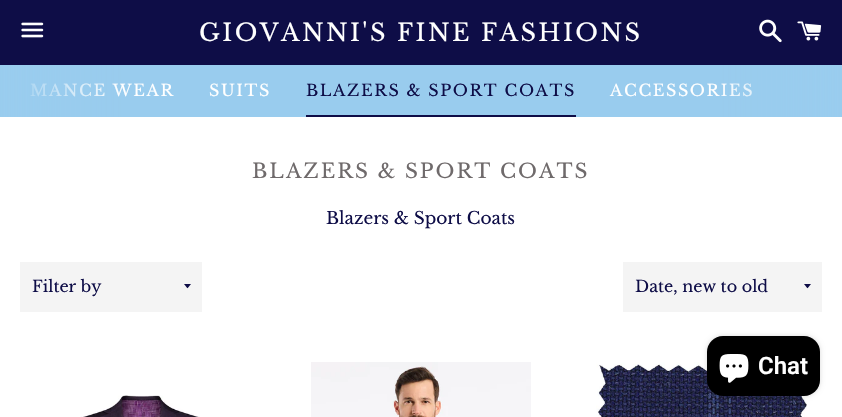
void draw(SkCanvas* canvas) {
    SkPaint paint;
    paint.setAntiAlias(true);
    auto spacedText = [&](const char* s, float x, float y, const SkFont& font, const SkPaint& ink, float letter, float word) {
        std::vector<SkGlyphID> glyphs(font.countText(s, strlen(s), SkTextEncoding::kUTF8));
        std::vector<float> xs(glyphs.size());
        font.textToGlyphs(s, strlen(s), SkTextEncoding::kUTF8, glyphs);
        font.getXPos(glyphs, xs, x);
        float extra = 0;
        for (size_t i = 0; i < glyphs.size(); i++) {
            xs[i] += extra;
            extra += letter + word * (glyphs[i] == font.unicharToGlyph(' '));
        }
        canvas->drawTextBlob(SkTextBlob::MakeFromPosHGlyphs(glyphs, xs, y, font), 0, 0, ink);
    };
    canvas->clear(0xFFFFFFFF);
    paint.setColor(0xFF0E0D47);
    canvas->drawRect(SkRect::MakeXYWH(0, 0, 842, 65), paint);
    canvas->drawImageRect(SkImages::DeferredFromEncodedData(SkData::MakeFromFileName("img1.png")), SkRect::MakeXYWH(21, 22, 23, 16), SkSamplingOptions());
    SkFont font1(fontMgr->matchFamilyStyle("Libre Baskerville", SkFontStyle::Normal()), 24);
    font1.setSubpixel(true);
    paint.setColor(0xFFFFFFFF);
    spacedText("GIOVANNI'S FINE FASHIONS", 199, 41, font1, paint, 2.4f, 0);
    canvas->drawImageRect(SkImages::DeferredFromEncodedData(SkData::MakeFromFileName("img2.png")), SkRect::MakeXYWH(759, 19, 23, 24), SkSamplingOptions());
    canvas->drawImageRect(SkImages::DeferredFromEncodedData(SkData::MakeFromFileName("img3.png")), SkRect::MakeXYWH(797, 21, 25, 20), SkSamplingOptions());
    paint.setColor(0xFF99CCEE);
    canvas->drawRect(SkRect::MakeXYWH(1, 65, 840, 52), paint);
    SkFont font2(fontMgr->matchFamilyStyle("Libre Baskerville", SkFontStyle::Normal()), 16);
    font2.setSubpixel(true);
    paint.setColor(0xFFFFFFFF);
    spacedText("MANCE WEAR", 30, 96, font2, paint, 1.6f, 0);
    {
        const SkColor colors[] = {0x0099CCEE, 0xFF99CCEE};
        const float stops[] = {0, 1};
        const SkPoint ends[] = {{125, 91}, {0, 91}};
        paint.setShader(SkGradientShader::MakeLinear(ends, colors, stops, 2, SkTileMode::kClamp));
        paint.setAlpha(255);
    }
    canvas->drawRect(SkRect::MakeXYWH(0, 65, 122, 52), paint);
    paint.setShader(nullptr);
    paint.setColor(0xFFFFFFFF);
    spacedText("ACCESSORIES", 610, 96, font2, paint, 1.6f, 0);
    {
        const SkColor colors[] = {0x0099CCEE, 0xFF99CCEE};
        const float stops[] = {0, 1};
        const SkPoint ends[] = {{717, 91}, {842, 91}};
        paint.setShader(SkGradientShader::MakeLinear(ends, colors, stops, 2, SkTileMode::kClamp));
        paint.setAlpha(255);
    }
    canvas->drawRect(SkRect::MakeXYWH(722, 65, 120, 52), paint);
    paint.setShader(nullptr);
    paint.setColor(0xFFFFFFFF);
    spacedText("SUITS", 209, 96, font2, paint, 1.6f, 0);
    paint.setColor(0xFF0E0D47);
    spacedText("BLAZERS & SPORT COATS", 306, 96, font2, paint, 1.6f, 0);
    canvas->drawRect(SkRect::MakeXYWH(306, 115, 270, 2), paint);
    SkFont font3(fontMgr->matchFamilyStyle("Libre Baskerville", SkFontStyle::Normal()), 20);
    font3.setSubpixel(true);
    paint.setColor(0xFF6F6A6B);
    spacedText("BLAZERS & SPORT COATS", 252, 178, font3, paint, 2, 0);
    SkFont font4(fontMgr->matchFamilyStyle("Libre Baskerville", SkFontStyle::Normal()), 17);
    font4.setSubpixel(true);
    paint.setColor(0xFF0E0D47);
    canvas->drawString("Blazers & Sport Coats", 326, 224, font4, paint);
    paint.setColor(0xFFF4F4F4);
    canvas->drawRect(SkRect::MakeXYWH(20, 262, 182, 50), paint);
    paint.setColor(0xFF0E0D47);
    canvas->drawPath(SkPathBuilder().moveTo(184, 284).cubicTo(188.5f, 289.5f, 186.5f, 289.5f, 191, 284).close().detach(), paint);
    canvas->drawString("Filter by", 32, 292, font2, paint);
    paint.setColor(0xFFF4F4F4);
    canvas->drawRect(SkRect::MakeXYWH(623, 262, 199, 50), paint);
    paint.setColor(0xFF0E0D47);
    canvas->drawPath(SkPathBuilder().moveTo(804, 284).cubicTo(808.5f, 289.5f, 806.5f, 289.5f, 811, 284).close().detach(), paint);
    canvas->drawString("Date, new to old", 635, 292, font2, paint);
    canvas->drawImageRect(SkImages::DeferredFromEncodedData(SkData::MakeFromFileName("img4.png")), SkRect::MakeXYWH(81, 395, 119, 22), SkSamplingOptions());
    canvas->drawImageRect(SkImages::DeferredFromEncodedData(SkData::MakeFromFileName("img5.png")), SkRect::MakeXYWH(311, 362, 220, 55), SkSamplingOptions());
    canvas->drawImageRect(SkImages::DeferredFromEncodedData(SkData::MakeFromFileName("img6.png")), SkRect::MakeXYWH(596, 362, 211, 55), SkSamplingOptions());
    paint.setColor(0x26000000);
    paint.setMaskFilter(SkMaskFilter::MakeBlur(kNormal_SkBlurStyle, 2.5f));
    canvas->drawRoundRect(SkRect::MakeXYWH(707, 336, 113, 60), 16, 16, paint);
    paint.setMaskFilter(nullptr);
    paint.setColor(0xFF000000);
    canvas->drawRoundRect(SkRect::MakeXYWH(707, 336, 113, 60), 16, 16, paint);
    canvas->drawImageRect(SkImages::DeferredFromEncodedData(SkData::MakeFromFileName("img7.png")), SkRect::MakeXYWH(719, 354, 30, 29), SkSamplingOptions());
    SkFont font5(fontMgr->matchFamilyStyle("Roboto", SkFontStyle(600, SkFontStyle::kNormal_Width, SkFontStyle::kUpright_Slant)), 24);
    font5.setSubpixel(true);
    paint.setColor(0xFFFFFFFF);
    canvas->drawString("Chat", 758, 374, font5, paint);
}
